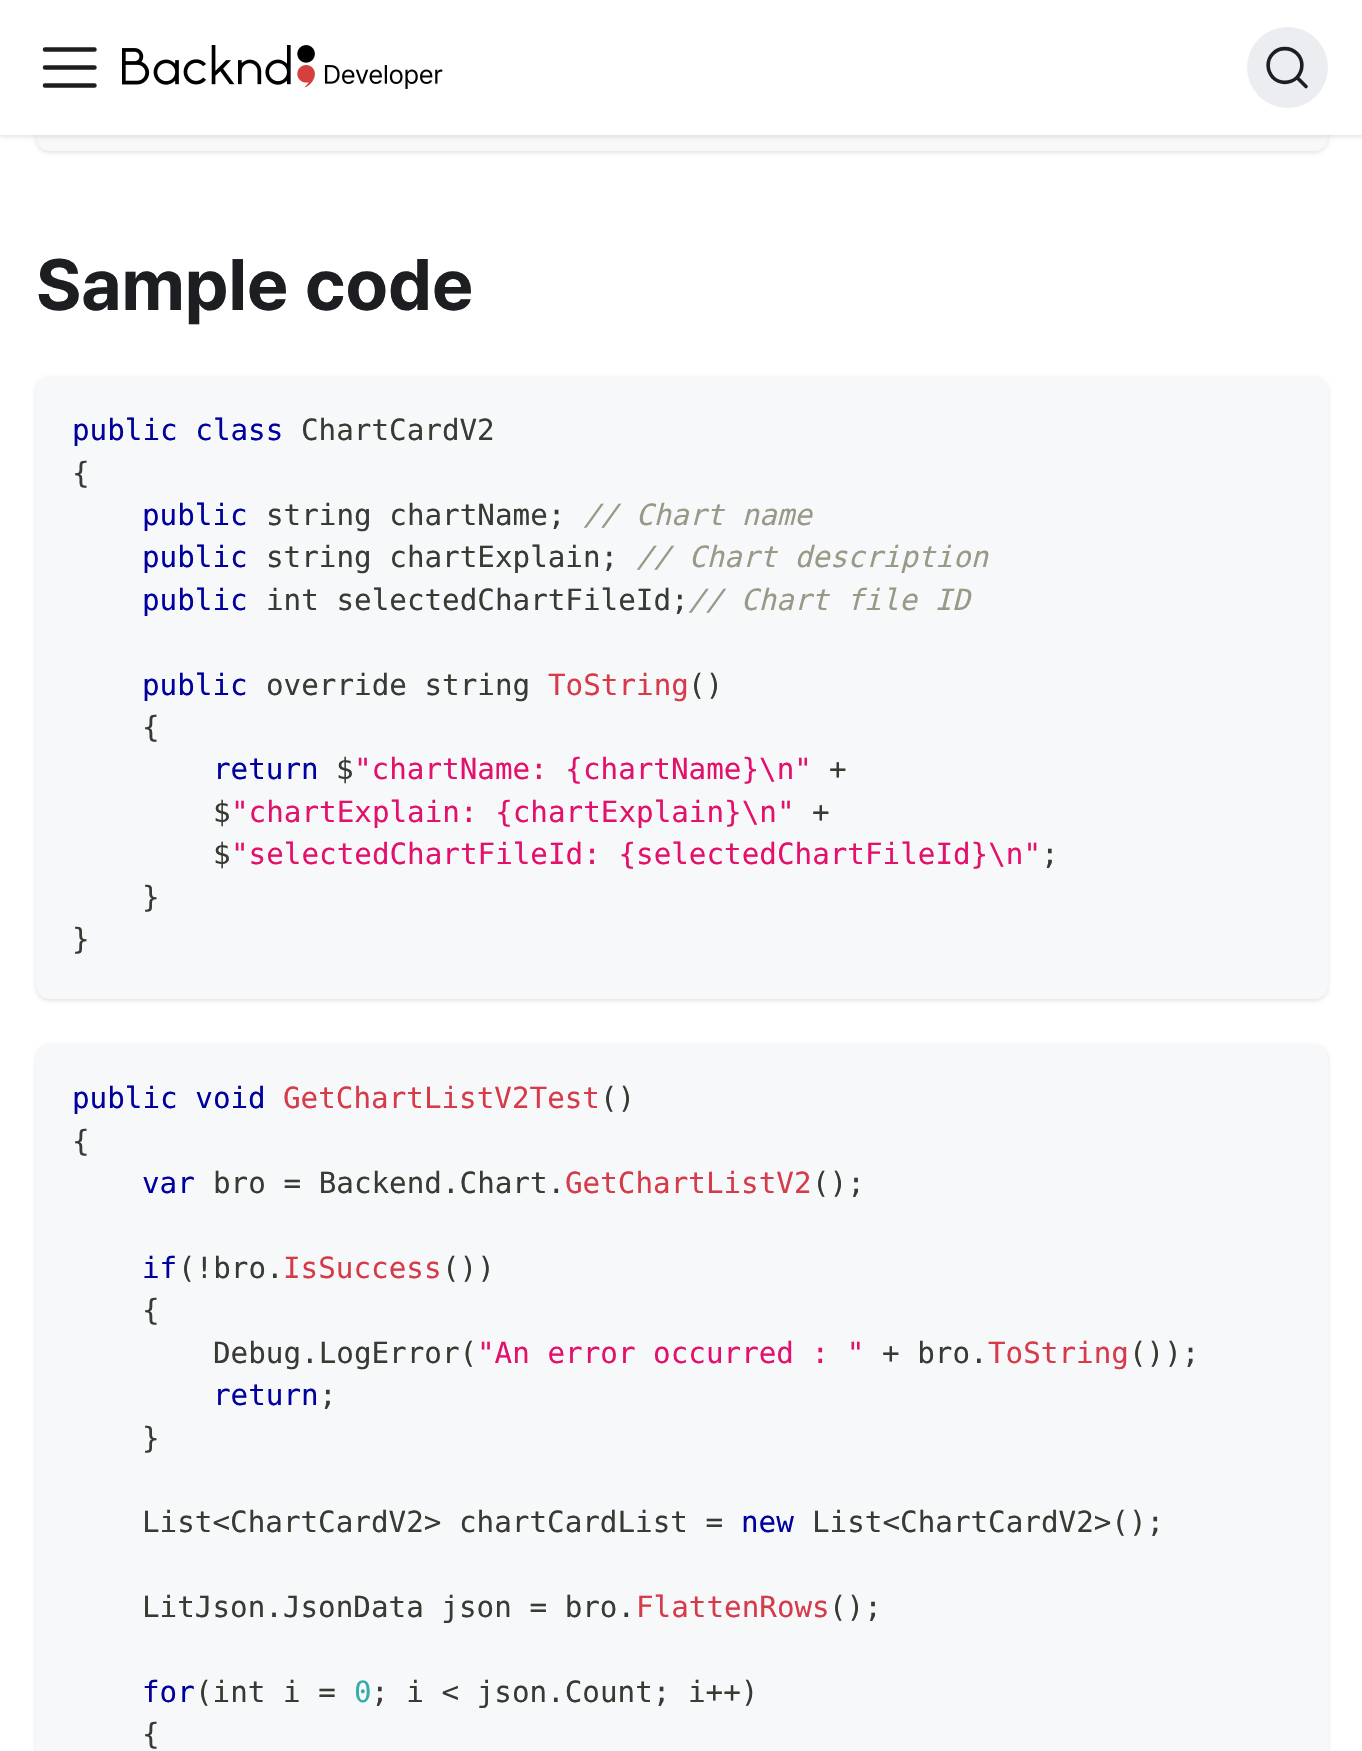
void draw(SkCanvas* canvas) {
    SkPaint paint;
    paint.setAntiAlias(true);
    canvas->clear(0xFFFFFFFF);
    paint.setColor(0x1A000000);
    paint.setMaskFilter(SkMaskFilter::MakeBlur(kNormal_SkBlurStyle, 2));
    canvas->drawRoundRect(SkRect::MakeXYWH(36, -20, 1292, 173), 14, 14, paint);
    paint.setMaskFilter(nullptr);
    paint.setColor(0xFFF6F8FA);
    canvas->drawRoundRect(SkRect::MakeXYWH(36, -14, 1292, 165), 14, 14, paint);
    paint.setColor(0x1A000000);
    paint.setMaskFilter(SkMaskFilter::MakeBlur(kNormal_SkBlurStyle, 2));
    canvas->drawRect(SkRect::MakeXYWH(0, 2, 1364, 135), paint);
    paint.setMaskFilter(nullptr);
    paint.setColor(0xFFFFFFFF);
    canvas->drawRect(SkRect::MakeXYWH(0, 0, 1362, 135), paint);
    paint.setStyle(SkPaint::kStroke_Style);
    paint.setStrokeWidth(4.5f);
    paint.setStrokeCap(SkPaint::kRound_Cap);
    paint.setColor(0xFF1C1E21);
    canvas->drawPath(SkPathBuilder().moveTo(45, 49.5f).lineTo(94.5f, 49.5f).moveTo(45, 67.5f).lineTo(94.5f, 67.5f).moveTo(45, 85.5f).lineTo(94.5f, 85.5f).detach(), paint);
    canvas->drawImageRect(SkImages::DeferredFromEncodedData(SkData::MakeFromFileName("img1.png")), SkRect::MakeXYWH(122, 45, 321, 44), SkSamplingOptions());
    paint.setStyle(SkPaint::kFill_Style);
    paint.setColor(0xFFEBEDF0);
    canvas->drawCircle(1287.5f, 67.5f, 40.5f, paint);
    paint.setStyle(SkPaint::kStroke_Style);
    paint.setStrokeWidth(3.6f);
    paint.setStrokeJoin(SkPaint::kRound_Join);
    paint.setColor(0xFF1C1E21);
    canvas->drawPath(SkPathBuilder().moveTo(1297, 77.5f).lineTo(1306, 86.5f).lineTo(1297, 77.5f).cubicTo(1290, 84, 1279.5f, 84, 1273, 77.5f).cubicTo(1266.5f, 70.5f, 1266.5f, 60, 1273, 53.5f).cubicTo(1279.5f, 47, 1290, 47, 1297, 53.5f).cubicTo(1303.5f, 60, 1303.5f, 70.5f, 1297, 77.5f).close().detach(), paint);
    SkFont font1(fontMgr->matchFamilyStyle("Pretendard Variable", SkFontStyle::Bold()), 72);
    font1.setSubpixel(true);
    paint.setStyle(SkPaint::kFill_Style);
    canvas->drawString("Sample code", 36, 310, font1, paint);
    paint.setColor(0x1A000000);
    paint.setMaskFilter(SkMaskFilter::MakeBlur(kNormal_SkBlurStyle, 2));
    canvas->drawRoundRect(SkRect::MakeXYWH(36, 378, 1292, 623), 14, 14, paint);
    paint.setMaskFilter(nullptr);
    paint.setColor(0xFFF6F8FA);
    canvas->drawRoundRect(SkRect::MakeXYWH(36, 376, 1292, 623), 14, 14, paint);
    SkFont font2(fontMgr->matchFamilyStyle("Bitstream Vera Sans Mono", SkFontStyle::Normal()), 29.25f);
    font2.setSubpixel(true);
    paint.setColor(0xFF00009F);
    canvas->drawString("public class", 72, 440, font2, paint);
    paint.setColor(0xFF393A34);
    canvas->drawString("ChartCardV2", 301, 440, font2, paint);
    canvas->drawString("{", 72, 483, font2, paint);
    paint.setColor(0xFF00009F);
    canvas->drawString("public", 142, 525, font2, paint);
    paint.setColor(0xFF393A34);
    canvas->drawString("string chartName;", 266, 525, font2, paint);
    SkFont font3(fontMgr->matchFamilyStyle("Bitstream Vera Sans Mono", SkFontStyle::Italic()), 29.25f);
    font3.setSubpixel(true);
    paint.setColor(0xFF999988);
    canvas->drawString("// Chart name", 583, 525, font3, paint);
    paint.setColor(0xFF00009F);
    canvas->drawString("public", 142, 567, font2, paint);
    paint.setColor(0xFF393A34);
    canvas->drawString("string chartExplain;", 266, 567, font2, paint);
    paint.setColor(0xFF999988);
    canvas->drawString("// Chart description", 636, 567, font3, paint);
    paint.setColor(0xFF00009F);
    canvas->drawString("public", 142, 610, font2, paint);
    paint.setColor(0xFF393A34);
    canvas->drawString("int selectedChartFileId;", 266, 610, font2, paint);
    paint.setColor(0xFF999988);
    canvas->drawString("// Chart file ID", 688, 610, font3, paint);
    paint.setColor(0xFF00009F);
    canvas->drawString("public", 142, 695, font2, paint);
    paint.setColor(0xFF393A34);
    canvas->drawString("override string", 266, 695, font2, paint);
    paint.setColor(0xFFD73A49);
    canvas->drawString("ToString", 548, 695, font2, paint);
    paint.setColor(0xFF393A34);
    canvas->drawString("()", 688, 695, font2, paint);
    canvas->drawString("{", 142, 737, font2, paint);
    paint.setColor(0xFF00009F);
    canvas->drawString("return", 213, 779, font2, paint);
    paint.setColor(0xFF393A34);
    canvas->drawString("$", 336, 779, font2, paint);
    paint.setColor(0xFFE3116C);
    canvas->drawString("\"chartName: {chartName}\\n\"", 354, 779, font2, paint);
    paint.setColor(0xFF393A34);
    canvas->drawString("+", 829, 779, font2, paint);
    canvas->drawString("$", 213, 822, font2, paint);
    paint.setColor(0xFFE3116C);
    canvas->drawString("\"chartExplain: {chartExplain}\\n\"", 231, 822, font2, paint);
    paint.setColor(0xFF393A34);
    canvas->drawString("+", 812, 822, font2, paint);
    canvas->drawString("$", 213, 864, font2, paint);
    paint.setColor(0xFFE3116C);
    canvas->drawString("\"selectedChartFileId: {selectedChartFileId}\\n\"", 231, 864, font2, paint);
    paint.setColor(0xFF393A34);
    canvas->drawString(";", 1041, 864, font2, paint);
    canvas->drawString("}", 142, 907, font2, paint);
    canvas->drawString("}", 72, 949, font2, paint);
    paint.setColor(0x1A000000);
    paint.setMaskFilter(SkMaskFilter::MakeBlur(kNormal_SkBlurStyle, 2));
    canvas->drawRoundRect(SkRect::MakeXYWH(36, 1046, 1292, 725), 14, 14, paint);
    paint.setMaskFilter(nullptr);
    paint.setColor(0xFFF6F8FA);
    canvas->drawRoundRect(SkRect::MakeXYWH(36, 1044, 1292, 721), 14, 14, paint);
    paint.setColor(0xFF00009F);
    canvas->drawString("public void", 72, 1108, font2, paint);
    paint.setColor(0xFFD73A49);
    canvas->drawString("GetChartListV2Test", 283, 1108, font2, paint);
    paint.setColor(0xFF393A34);
    canvas->drawString("()", 600, 1108, font2, paint);
    canvas->drawString("{", 72, 1151, font2, paint);
    paint.setColor(0xFF00009F);
    canvas->drawString("var", 142, 1193, font2, paint);
    paint.setColor(0xFF393A34);
    canvas->drawString("bro = Backend.Chart.", 213, 1193, font2, paint);
    paint.setColor(0xFFD73A49);
    canvas->drawString("GetChartListV2", 565, 1193, font2, paint);
    paint.setColor(0xFF393A34);
    canvas->drawString("();", 812, 1193, font2, paint);
    paint.setColor(0xFF00009F);
    canvas->drawString("if", 142, 1278, font2, paint);
    paint.setColor(0xFF393A34);
    canvas->drawString("(!bro.", 178, 1278, font2, paint);
    paint.setColor(0xFFD73A49);
    canvas->drawString("IsSuccess", 283, 1278, font2, paint);
    paint.setColor(0xFF393A34);
    canvas->drawString("())", 442, 1278, font2, paint);
    canvas->drawString("{", 142, 1320, font2, paint);
    canvas->drawString("Debug.LogError(", 213, 1363, font2, paint);
    paint.setColor(0xFFE3116C);
    canvas->drawString("\"An error occurred : \"", 477, 1363, font2, paint);
    paint.setColor(0xFF393A34);
    canvas->drawString("+ bro.", 882, 1363, font2, paint);
    paint.setColor(0xFFD73A49);
    canvas->drawString("ToString", 988, 1363, font2, paint);
    paint.setColor(0xFF393A34);
    canvas->drawString("());", 1129, 1363, font2, paint);
    paint.setColor(0xFF00009F);
    canvas->drawString("return", 213, 1405, font2, paint);
    paint.setColor(0xFF393A34);
    canvas->drawString(";", 319, 1405, font2, paint);
    canvas->drawString("}", 142, 1448, font2, paint);
    canvas->drawString("List<ChartCardV2> chartCardList =", 142, 1532, font2, paint);
    paint.setColor(0xFF00009F);
    canvas->drawString("new", 741, 1532, font2, paint);
    paint.setColor(0xFF393A34);
    canvas->drawString("List<ChartCardV2>();", 812, 1532, font2, paint);
    canvas->drawString("LitJson.JsonData json = bro.", 142, 1617, font2, paint);
    paint.setColor(0xFFD73A49);
    canvas->drawString("FlattenRows", 636, 1617, font2, paint);
    paint.setColor(0xFF393A34);
    canvas->drawString("();", 829, 1617, font2, paint);
    paint.setColor(0xFF00009F);
    canvas->drawString("for", 142, 1702, font2, paint);
    paint.setColor(0xFF393A34);
    canvas->drawString("(int i =", 195, 1702, font2, paint);
    paint.setColor(0xFF36ACAA);
    canvas->drawString("0", 354, 1702, font2, paint);
    paint.setColor(0xFF393A34);
    canvas->drawString("; i < json.Count; i++)", 371, 1702, font2, paint);
    canvas->drawString("{", 142, 1744, font2, paint);
}
